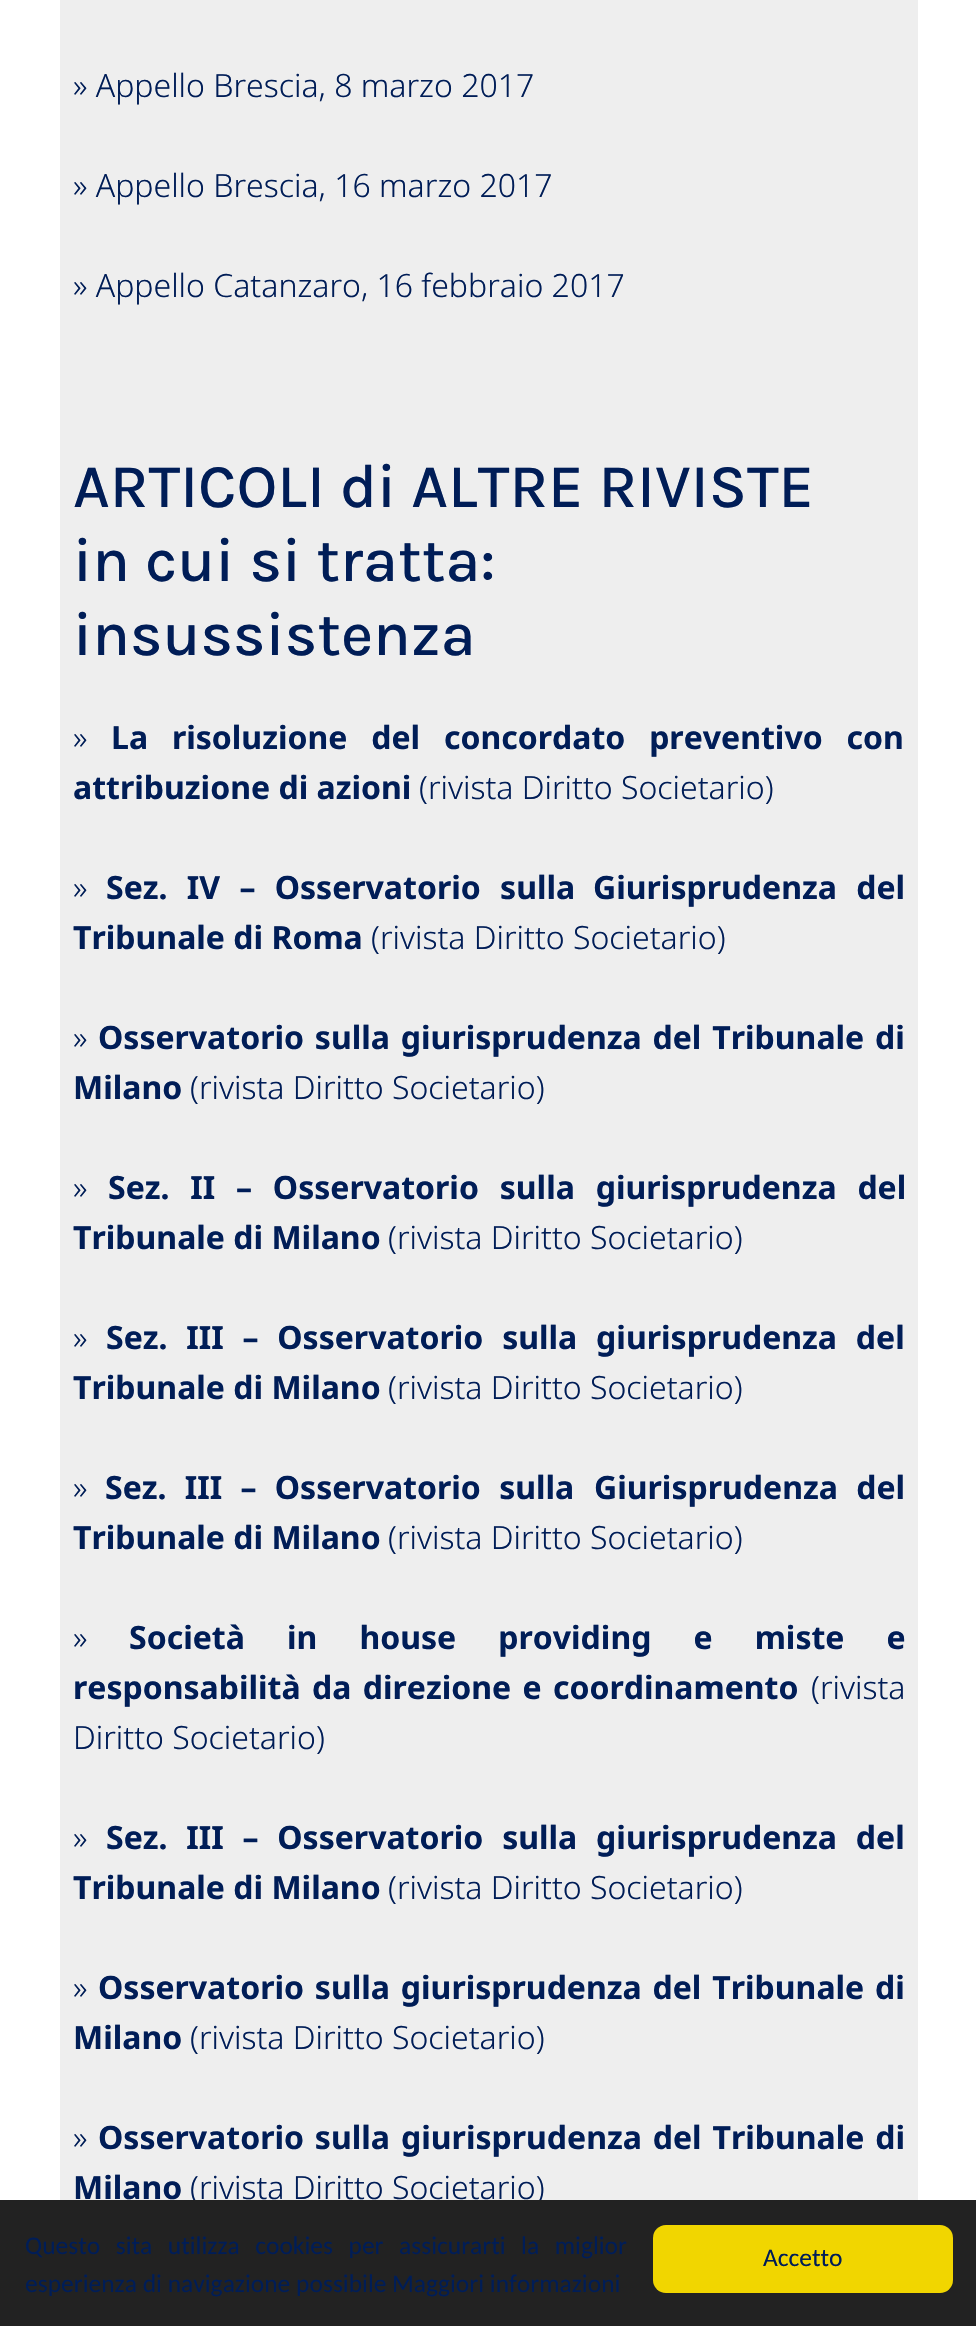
void draw(SkCanvas* canvas) {
    SkPaint paint;
    paint.setAntiAlias(true);
    auto spacedText = [&](const char* s, float x, float y, const SkFont& font, const SkPaint& ink, float letter, float word) {
        std::vector<SkGlyphID> glyphs(font.countText(s, strlen(s), SkTextEncoding::kUTF8));
        std::vector<float> xs(glyphs.size());
        font.textToGlyphs(s, strlen(s), SkTextEncoding::kUTF8, glyphs);
        font.getXPos(glyphs, xs, x);
        float extra = 0;
        for (size_t i = 0; i < glyphs.size(); i++) {
            xs[i] += extra;
            extra += letter + word * (glyphs[i] == font.unicharToGlyph(' '));
        }
        canvas->drawTextBlob(SkTextBlob::MakeFromPosHGlyphs(glyphs, xs, y, font), 0, 0, ink);
    };
    canvas->clear(0xFFFFFFFF);
    paint.setColor(0xFFEEEEEE);
    canvas->drawRect(SkRect::MakeXYWH(60, 0, 858, 2200), paint);
    SkFont font1(fontMgr->matchFamilyStyle("Noto Sans", SkFontStyle(300, SkFontStyle::kNormal_Width, SkFontStyle::kUpright_Slant)), 32);
    font1.setSubpixel(true);
    paint.setColor(0xFF001D57);
    canvas->drawString("» Appello Brescia, 8 marzo 2017", 73, 97, font1, paint);
    canvas->drawString("» Appello Brescia, 16 marzo 2017", 73, 197, font1, paint);
    canvas->drawString("» Appello Catanzaro, 16 febbraio 2017", 73, 297, font1, paint);
    SkFont font2(fontMgr->matchFamilyStyle("Karla", SkFontStyle(500, SkFontStyle::kNormal_Width, SkFontStyle::kUpright_Slant)), 61.75f);
    font2.setSubpixel(true);
    canvas->drawString("ARTICOLI di ALTRE RIVISTE", 73, 507, font2, paint);
    canvas->drawString("in cui si tratta:", 73, 581, font2, paint);
    canvas->drawString("insussistenza", 73, 655, font2, paint);
    canvas->drawString("»", 73, 749, font1, paint);
    SkFont font3(fontMgr->matchFamilyStyle("Noto Sans", SkFontStyle::Bold()), 32);
    font3.setSubpixel(true);
    spacedText("La risoluzione del concordato preventivo con", 111, 749, font3, paint, 0, 15.5f);
    canvas->drawString("attribuzione di azioni", 73, 799, font3, paint);
    canvas->drawString("(rivista Diritto Societario)", 419, 799, font1, paint);
    canvas->drawString("»", 73, 899, font1, paint);
    spacedText("Sez. IV – Osservatorio sulla", 106, 899, font3, paint, 0, 11);
    spacedText("Giurisprudenza del", 593, 899, font3, paint, 0, 11);
    canvas->drawString("Tribunale di Roma", 73, 949, font3, paint);
    canvas->drawString("(rivista Diritto Societario)", 371, 949, font1, paint);
    canvas->drawString("»", 73, 1049, font1, paint);
    spacedText("Osservatorio sulla giurisprudenza del Tribunale di", 98, 1049, font3, paint, 0, 2.5f);
    canvas->drawString("Milano", 73, 1099, font3, paint);
    canvas->drawString("(rivista Diritto Societario)", 190, 1099, font1, paint);
    canvas->drawString("»", 73, 1199, font1, paint);
    spacedText("Sez. II – Osservatorio sulla giurisprudenza del", 108, 1199, font3, paint, 0, 12.5f);
    canvas->drawString("Tribunale di Milano", 73, 1249, font3, paint);
    canvas->drawString("(rivista Diritto Societario)", 388, 1249, font1, paint);
    canvas->drawString("»", 73, 1349, font1, paint);
    spacedText("Sez. III – Osservatorio sulla giurisprudenza del", 106, 1349, font3, paint, 0, 10.5f);
    canvas->drawString("Tribunale di Milano", 73, 1399, font3, paint);
    canvas->drawString("(rivista Diritto Societario)", 388, 1399, font1, paint);
    canvas->drawString("»", 73, 1499, font1, paint);
    spacedText("Sez. III – Osservatorio sulla", 105, 1499, font3, paint, 0, 10);
    spacedText("Giurisprudenza del", 594, 1499, font3, paint, 0, 10);
    canvas->drawString("Tribunale di Milano", 73, 1549, font3, paint);
    canvas->drawString("(rivista Diritto Societario)", 388, 1549, font1, paint);
    canvas->drawString("»", 73, 1649, font1, paint);
    spacedText("Società in house providing e miste e", 129, 1649, font3, paint, 0, 33.75f);
    spacedText("responsabilità da direzione e coordinamento", 73, 1699, font3, paint, 0, 3);
    canvas->drawString("(rivista", 811, 1699, font1, paint);
    canvas->drawString("Diritto Societario)", 73, 1749, font1, paint);
    canvas->drawString("»", 73, 1849, font1, paint);
    spacedText("Sez. III – Osservatorio sulla giurisprudenza del", 106, 1849, font3, paint, 0, 10.5f);
    canvas->drawString("Tribunale di Milano", 73, 1899, font3, paint);
    canvas->drawString("(rivista Diritto Societario)", 388, 1899, font1, paint);
    canvas->drawString("»", 73, 1999, font1, paint);
    spacedText("Osservatorio sulla giurisprudenza del Tribunale di", 98, 1999, font3, paint, 0, 2.5f);
    canvas->drawString("Milano", 73, 2049, font3, paint);
    canvas->drawString("(rivista Diritto Societario)", 190, 2049, font1, paint);
    canvas->drawString("»", 73, 2149, font1, paint);
    spacedText("Osservatorio sulla", 98, 2149, font3, paint, 0, 2.5f);
    spacedText("giurisprudenza del Tribunale di", 401, 2149, font3, paint, 0, 2.5f);
    canvas->drawString("Milano", 73, 2199, font3, paint);
    canvas->drawString("(rivista Diritto Societario)", 190, 2199, font1, paint);
    paint.setColor(0xFF222222);
    canvas->drawRect(SkRect::MakeXYWH(0, 2200, 976, 126), paint);
    SkFont font4(fontMgr->matchFamilyStyle("Carlito", SkFontStyle::Normal()), 25.5f);
    font4.setSubpixel(true);
    paint.setColor(0xFF001D57);
    spacedText("Questo sita utilizza cookies per assicurarti la miglior", 25, 2254, font4, paint, 0, 9.75f);
    canvas->drawString("esperienza di navigazione possibile", 25, 2292, font4, paint);
    canvas->drawString("Maggiori informazioni", 392, 2292, font4, paint);
    paint.setColor(0xFFF1D600);
    canvas->drawRoundRect(SkRect::MakeXYWH(653, 2225, 300, 68), 13, 13, paint);
    paint.setColor(0xFF001D57);
    canvas->drawString("Accetto", 763, 2266, font4, paint);
}
